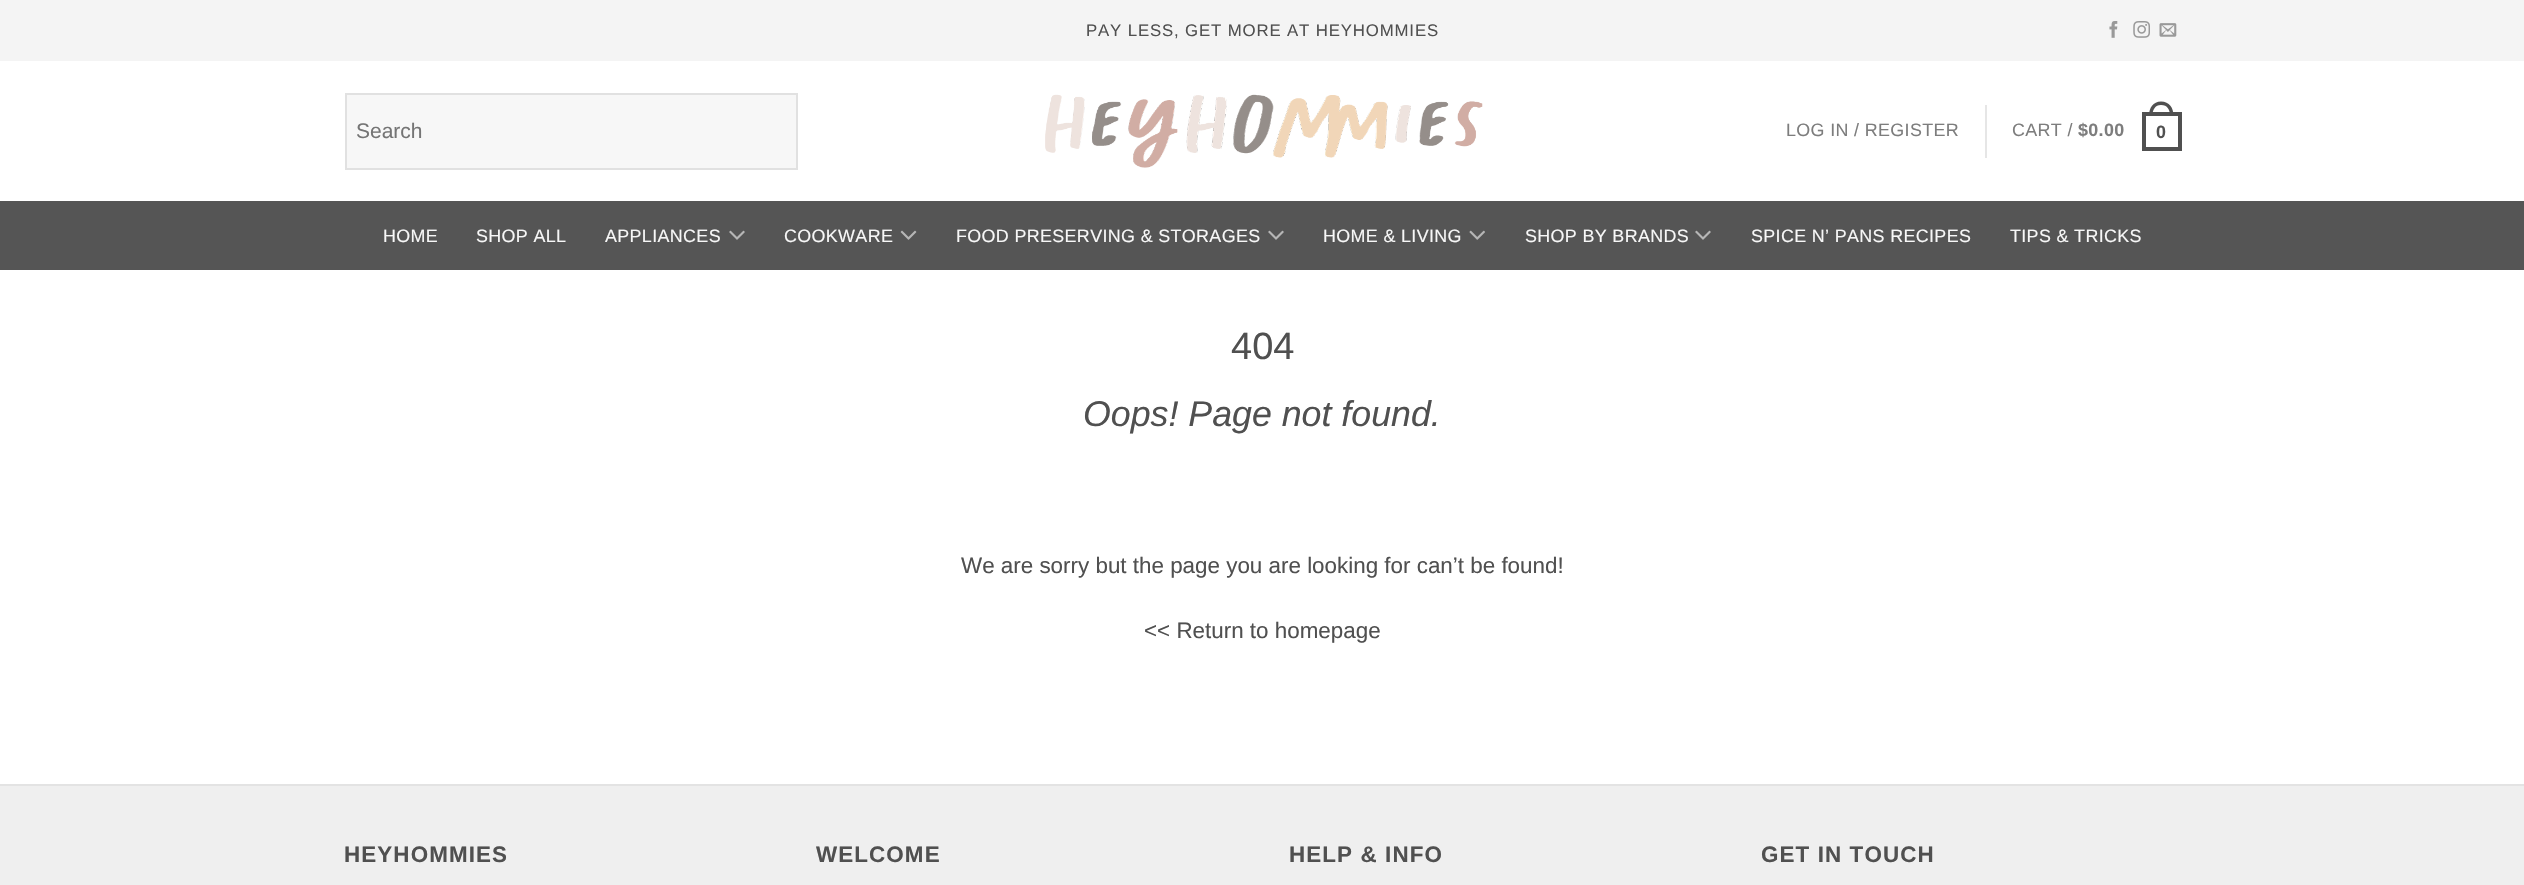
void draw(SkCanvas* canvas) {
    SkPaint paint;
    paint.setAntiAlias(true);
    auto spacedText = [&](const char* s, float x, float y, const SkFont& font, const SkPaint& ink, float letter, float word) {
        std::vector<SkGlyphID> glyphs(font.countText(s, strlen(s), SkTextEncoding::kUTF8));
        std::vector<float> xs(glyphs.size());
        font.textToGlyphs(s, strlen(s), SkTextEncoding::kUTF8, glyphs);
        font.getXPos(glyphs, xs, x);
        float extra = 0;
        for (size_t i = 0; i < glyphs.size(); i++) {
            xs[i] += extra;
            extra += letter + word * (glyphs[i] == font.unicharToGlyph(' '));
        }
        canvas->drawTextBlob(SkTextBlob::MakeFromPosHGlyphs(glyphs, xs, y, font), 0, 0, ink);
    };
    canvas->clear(0xFFFFFFFF);
    paint.setColor(0xFFF4F4F4);
    canvas->drawRect(SkRect::MakeXYWH(0, 0, 2524, 61), paint);
    SkFont font1(fontMgr->matchFamilyStyle("Liberation Sans", SkFontStyle::Normal()), 16.8f);
    font1.setSubpixel(true);
    paint.setColor(0xFF505050);
    spacedText("PAY LESS, GET MORE AT HEYHOMMIES", 1086, 36, font1, paint, 0.85f, 0);
    canvas->drawImageRect(SkImages::DeferredFromEncodedData(SkData::MakeFromFileName("img1.png")), SkRect::MakeXYWH(2109, 21, 9, 17), SkSamplingOptions());
    canvas->drawImageRect(SkImages::DeferredFromEncodedData(SkData::MakeFromFileName("img2.png")), SkRect::MakeXYWH(2133, 21, 17, 17), SkSamplingOptions());
    canvas->drawImageRect(SkImages::DeferredFromEncodedData(SkData::MakeFromFileName("img3.png")), SkRect::MakeXYWH(2159, 23, 18, 14), SkSamplingOptions());
    paint.setColor(0xFFF7F7F7);
    canvas->drawRect(SkRect::MakeXYWH(346, 94, 451, 75), paint);
    paint.setStyle(SkPaint::kStroke_Style);
    paint.setStrokeWidth(2);
    paint.setColor(0xFFE1E1E1);
    canvas->drawRect(SkRect::MakeXYWH(346, 94, 451, 75), paint);
    SkFont font2(fontMgr->matchFamilyStyle("Liberation Sans", SkFontStyle::Normal()), 21);
    font2.setSubpixel(true);
    paint.setStyle(SkPaint::kFill_Style);
    paint.setColor(0xFF757575);
    canvas->drawString("Search", 356, 138, font2, paint);
    canvas->drawImageRect(SkImages::DeferredFromEncodedData(SkData::MakeFromFileName("img4.png")), SkRect::MakeXYWH(1045, 94, 438, 74), SkSamplingOptions());
    SkFont font3(fontMgr->matchFamilyStyle("Liberation Sans", SkFontStyle::Normal()), 17.9f);
    font3.setSubpixel(true);
    paint.setColor(0xFF7D7D7D);
    spacedText("LOG IN / REGISTER", 1786, 136, font3, paint, 0.35f, 0);
    paint.setColor(0xFFE6E6E6);
    canvas->drawRect(SkRect::MakeXYWH(1985, 105, 2, 53), paint);
    paint.setColor(0xFF7D7D7D);
    spacedText("CART /", 2012, 136, font3, paint, 0.35f, 0);
    SkFont font4(fontMgr->matchFamilyStyle("Liberation Sans", SkFontStyle::Bold()), 17.9f);
    font4.setSubpixel(true);
    spacedText("$0.00", 2078, 136, font4, paint, 0.35f, 0);
    paint.setStyle(SkPaint::kStroke_Style);
    paint.setStrokeWidth(4);
    paint.setColor(0xFF505050);
    canvas->drawRect(SkRect::MakeXYWH(2144, 114, 36, 35), paint);
    paint.setStyle(SkPaint::kFill_Style);
    canvas->drawPath(SkPathBuilder(SkPathFillType::kEvenOdd).moveTo(2161, 101.5f).cubicTo(2169.5f, 101.5f, 2173.5f, 108, 2173.5f, 115.5f).lineTo(2149, 115.5f).cubicTo(2149, 108, 2153, 101.5f, 2161, 101.5f).close().moveTo(2161, 105).cubicTo(2167.5f, 105, 2170, 110, 2170, 115.5f).lineTo(2152.5f, 115.5f).cubicTo(2152.5f, 110, 2155, 105, 2161, 105).close().detach(), paint);
    spacedText("0", 2156, 138, font4, paint, 0.35f, 0);
    paint.setColor(0xFF555555);
    canvas->drawRect(SkRect::MakeXYWH(0, 201, 2524, 69), paint);
    paint.setColor(0xFFF7F7F7);
    spacedText("HOME", 383, 242, font3, paint, 0.35f, 0);
    spacedText("SHOP ALL", 476, 242, font3, paint, 0.35f, 0);
    spacedText("APPLIANCES", 605, 242, font3, paint, 0.35f, 0);
    canvas->drawImageRect(SkImages::DeferredFromEncodedData(SkData::MakeFromFileName("img5.png")), SkRect::MakeXYWH(729, 230, 16, 10), SkSamplingOptions());
    spacedText("COOKWARE", 784, 242, font3, paint, 0.35f, 0);
    canvas->drawImageRect(SkImages::DeferredFromEncodedData(SkData::MakeFromFileName("img6.png")), SkRect::MakeXYWH(900, 230, 17, 10), SkSamplingOptions());
    spacedText("FOOD PRESERVING & STORAGES", 956, 242, font3, paint, 0.35f, 0);
    canvas->drawImageRect(SkImages::DeferredFromEncodedData(SkData::MakeFromFileName("img5.png")), SkRect::MakeXYWH(1268, 230, 16, 10), SkSamplingOptions());
    spacedText("HOME & LIVING", 1323, 242, font3, paint, 0.35f, 0);
    canvas->drawImageRect(SkImages::DeferredFromEncodedData(SkData::MakeFromFileName("img7.png")), SkRect::MakeXYWH(1469, 230, 16, 10), SkSamplingOptions());
    spacedText("SHOP BY BRANDS", 1525, 242, font3, paint, 0.35f, 0);
    canvas->drawImageRect(SkImages::DeferredFromEncodedData(SkData::MakeFromFileName("img5.png")), SkRect::MakeXYWH(1695, 230, 16, 10), SkSamplingOptions());
    spacedText("SPICE N’ PANS RECIPES", 1751, 242, font3, paint, 0.35f, 0);
    spacedText("TIPS & TRICKS", 2010, 242, font3, paint, 0.35f, 0);
    SkFont font5(fontMgr->matchFamilyStyle("Liberation Sans", SkFontStyle::Normal()), 38);
    font5.setSubpixel(true);
    paint.setColor(0xFF505050);
    canvas->drawString("404", 1231, 359, font5, paint);
    SkFont font6(fontMgr->matchFamilyStyle("Liberation Sans", SkFontStyle::Italic()), 35.75f);
    font6.setSubpixel(true);
    canvas->drawString("Oops! Page not found.", 1083, 426, font6, paint);
    SkFont font7(fontMgr->matchFamilyStyle("Liberation Sans", SkFontStyle::Normal()), 22.4f);
    font7.setSubpixel(true);
    canvas->drawString("We are sorry but the page you are looking for can’t be found!", 961, 573, font7, paint);
    canvas->drawString("<< Return to homepage", 1144, 638, font7, paint);
    paint.setColor(0xFFEFEFEF);
    canvas->drawRect(SkRect::MakeXYWH(0, 786, 2524, 99), paint);
    paint.setColor(0xFFE3E3E3);
    canvas->drawRect(SkRect::MakeXYWH(0, 784, 2524, 2), paint);
    SkFont font8(fontMgr->matchFamilyStyle("Liberation Sans", SkFontStyle::Bold()), 22.4f);
    font8.setSubpixel(true);
    paint.setColor(0xFF505050);
    spacedText("HEYHOMMIES", 344, 862, font8, paint, 1.1f, 0);
    spacedText("WELCOME", 816, 862, font8, paint, 1.1f, 0);
    spacedText("HELP & INFO", 1289, 862, font8, paint, 1.1f, 0);
    spacedText("GET IN TOUCH", 1761, 862, font8, paint, 1.1f, 0);
}
